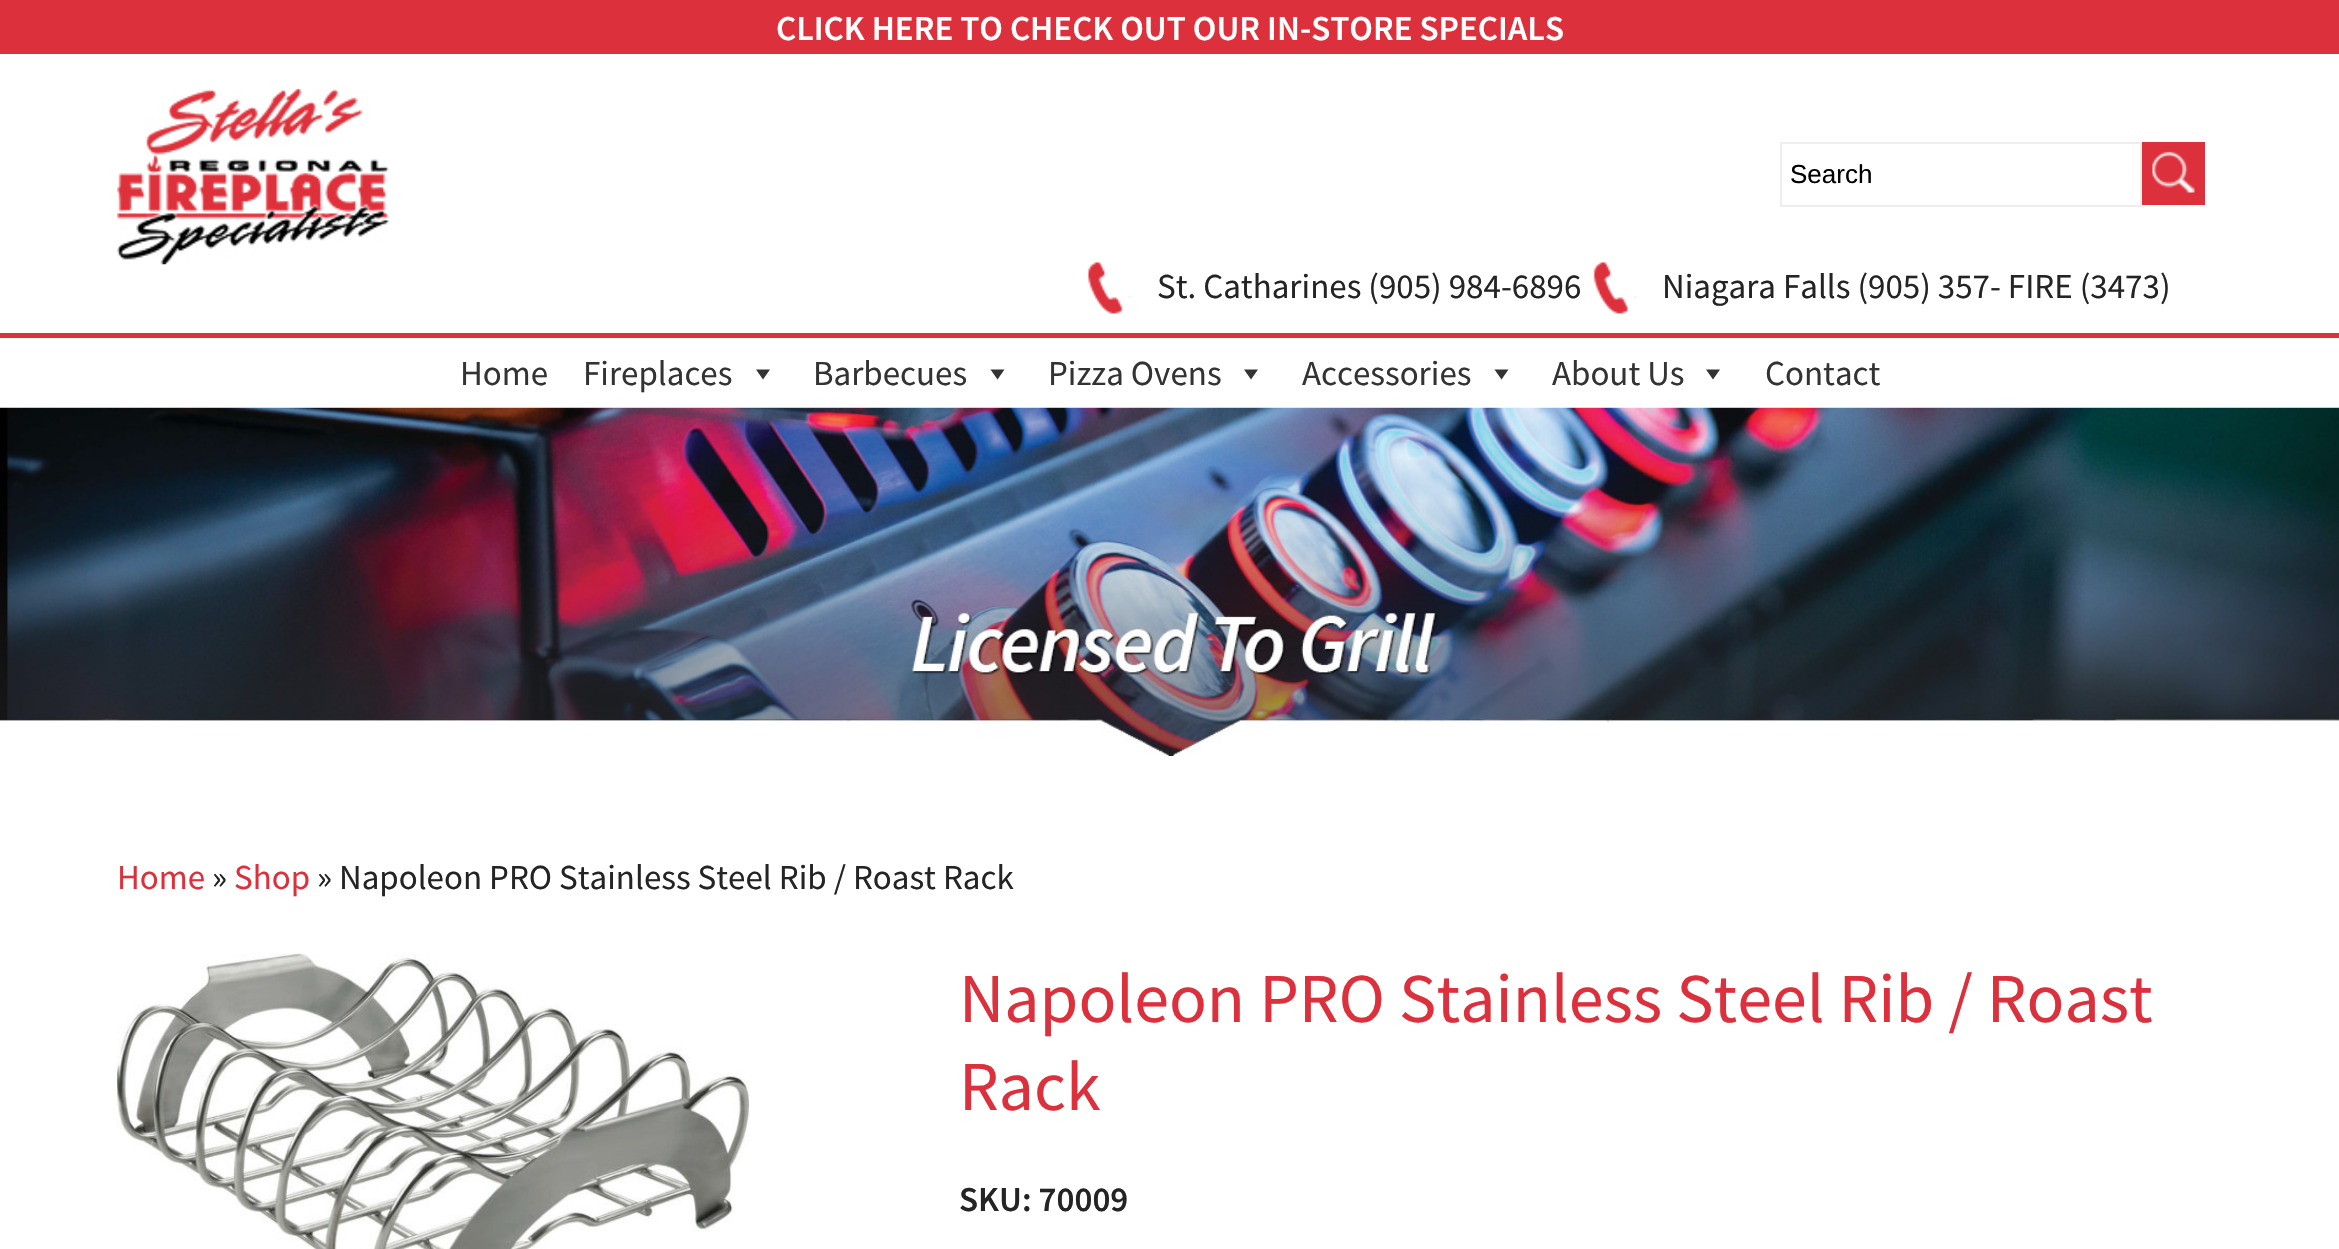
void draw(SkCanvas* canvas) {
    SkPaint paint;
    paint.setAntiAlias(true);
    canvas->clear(0xFFFFFFFF);
    paint.setColor(0xFFDC303C);
    canvas->drawRect(SkRect::MakeXYWH(0, 0, 2339, 54), paint);
    SkFont font1(fontMgr->matchFamilyStyle("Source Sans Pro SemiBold", SkFontStyle(600, SkFontStyle::kNormal_Width, SkFontStyle::kUpright_Slant)), 35);
    font1.setSubpixel(true);
    paint.setColor(0xFFFFFFFF);
    canvas->drawString("CLICK HERE TO CHECK OUT OUR IN-STORE SPECIALS", 776, 40, font1, paint);
    canvas->drawImageRect(SkImages::DeferredFromEncodedData(SkData::MakeFromFileName("img1.png")), SkRect::MakeXYWH(117, 89, 272, 176), SkSamplingOptions());
    paint.setStyle(SkPaint::kStroke_Style);
    paint.setStrokeWidth(2);
    paint.setColor(0xFFEEEEEE);
    canvas->drawRect(SkRect::MakeXYWH(1781, 143, 360, 63), paint);
    SkFont font2(fontMgr->matchFamilyStyle("Liberation Sans", SkFontStyle::Normal()), 26);
    font2.setSubpixel(true);
    paint.setStyle(SkPaint::kFill_Style);
    paint.setColor(0xFF000000);
    canvas->drawString("Search", 1790, 183, font2, paint);
    paint.setColor(0xFFDC303C);
    canvas->drawRect(SkRect::MakeXYWH(2142, 142, 63, 63), paint);
    canvas->drawImageRect(SkImages::DeferredFromEncodedData(SkData::MakeFromFileName("img2.png")), SkRect::MakeXYWH(2152, 151, 43, 42), SkSamplingOptions());
    canvas->drawImageRect(SkImages::DeferredFromEncodedData(SkData::MakeFromFileName("img3.png")), SkRect::MakeXYWH(1088, 262, 43, 52), SkSamplingOptions());
    SkFont font3(fontMgr->matchFamilyStyle("Source Sans Pro", SkFontStyle::Normal()), 35);
    font3.setSubpixel(true);
    paint.setColor(0xFF242424);
    canvas->drawString("St. Catharines (905) 984-6896", 1157, 298, font3, paint);
    canvas->drawImageRect(SkImages::DeferredFromEncodedData(SkData::MakeFromFileName("img4.png")), SkRect::MakeXYWH(1593, 262, 44, 52), SkSamplingOptions());
    canvas->drawString("Niagara Falls (905) 357- FIRE (3473)", 1662, 298, font3, paint);
    paint.setColor(0xFFDC303C);
    canvas->drawRect(SkRect::MakeXYWH(0, 333, 2339, 5), paint);
    canvas->drawImageRect(SkImages::DeferredFromEncodedData(SkData::MakeFromFileName("img5.png")), SkRect::MakeXYWH(0, 407, 2339, 349), SkSamplingOptions());
    paint.setColor(0x1AFFFFFF);
    canvas->drawRect(SkRect::MakeXYWH(0, 407, 2339, 1), paint);
    paint.setColor(0xFF333333);
    canvas->drawString("Home", 460, 385, font3, paint);
    canvas->drawString("Fireplaces", 583, 385, font3, paint);
    canvas->drawPath(SkPathBuilder().moveTo(770, 369.5f).lineTo(763, 379.5f).lineTo(756, 369.5f).close().detach(), paint);
    canvas->drawString("Barbecues", 813, 385, font3, paint);
    canvas->drawPath(SkPathBuilder().moveTo(1004.5f, 369.5f).lineTo(997.5f, 379.5f).lineTo(990.5f, 369.5f).close().detach(), paint);
    canvas->drawString("Pizza Ovens", 1048, 385, font3, paint);
    canvas->drawPath(SkPathBuilder().moveTo(1258, 369.5f).lineTo(1251, 379.5f).lineTo(1244, 369.5f).close().detach(), paint);
    canvas->drawString("Accessories", 1302, 385, font3, paint);
    canvas->drawPath(SkPathBuilder().moveTo(1508.5f, 369.5f).lineTo(1501.5f, 379.5f).lineTo(1494.5f, 369.5f).close().detach(), paint);
    canvas->drawString("About Us", 1552, 385, font3, paint);
    canvas->drawPath(SkPathBuilder().moveTo(1720, 369.5f).lineTo(1713, 379.5f).lineTo(1706, 369.5f).close().detach(), paint);
    canvas->drawString("Contact", 1765, 385, font3, paint);
    paint.setColor(0xFFDC303C);
    canvas->drawString("Home", 117, 889, font3, paint);
    paint.setColor(0xFF242424);
    canvas->drawString("»", 212, 889, font3, paint);
    paint.setColor(0xFFDC303C);
    canvas->drawString("Shop", 234, 889, font3, paint);
    paint.setColor(0xFF242424);
    canvas->drawString("» Napoleon PRO Stainless Steel Rib / Roast Rack", 317, 889, font3, paint);
    canvas->drawImageRect(SkImages::DeferredFromEncodedData(SkData::MakeFromFileName("img6.png")), SkRect::MakeXYWH(117, 953, 632, 296), SkSamplingOptions());
    SkFont font4(fontMgr->matchFamilyStyle("Source Sans Pro", SkFontStyle::Normal()), 70);
    font4.setSubpixel(true);
    paint.setColor(0xFFDC303C);
    canvas->drawString("Napoleon PRO Stainless Steel Rib / Roast", 959, 1022, font4, paint);
    canvas->drawString("Rack", 959, 1110, font4, paint);
    paint.setColor(0xFF242424);
    canvas->drawString("SKU: 70009", 959, 1211, font1, paint);
}
